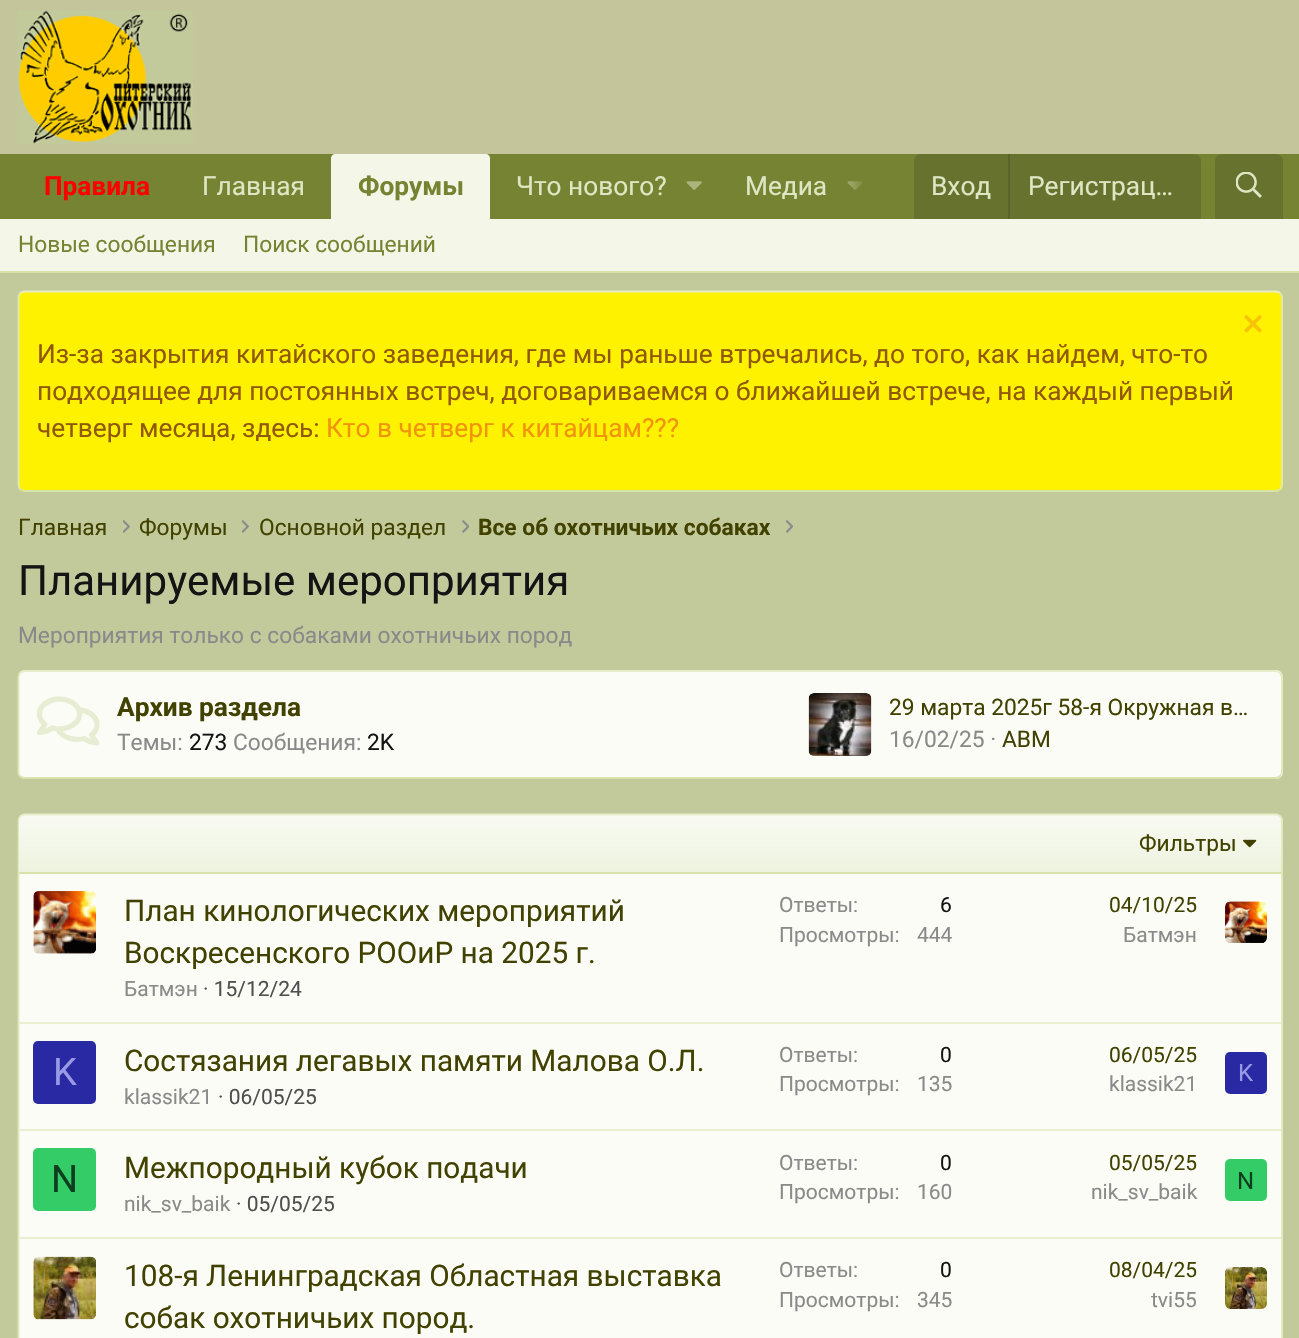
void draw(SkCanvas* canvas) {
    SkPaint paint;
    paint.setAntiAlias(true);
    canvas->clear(0xFFC2CA9B);
    paint.setColor(0xFFC5C59C);
    canvas->drawRect(SkRect::MakeXYWH(0, 0, 1299, 154), paint);
    canvas->drawImageRect(SkImages::DeferredFromEncodedData(SkData::MakeFromFileName("img1.png")), SkRect::MakeXYWH(17, 10, 176, 134), SkSamplingOptions());
    paint.setColor(0xFF758332);
    canvas->drawRect(SkRect::MakeXYWH(0, 154, 1299, 65), paint);
    SkFont font1(fontMgr->matchFamilyStyle("Roboto", SkFontStyle::Bold()), 26.25f);
    font1.setSubpixel(true);
    paint.setColor(0xFFFF0000);
    canvas->drawString("Правила", 44, 195, font1, paint);
    SkFont font2(fontMgr->matchFamilyStyle("Roboto", SkFontStyle::Normal()), 26.25f);
    font2.setSubpixel(true);
    paint.setColor(0xFFDFE6C4);
    canvas->drawString("Главная", 202, 195, font2, paint);
    paint.setColor(0xFFF4F7E7);
    canvas->drawPath(SkPathBuilder().moveTo(335, 154).lineTo(486, 154).cubicTo(488, 154, 490, 156, 490, 158).lineTo(490, 219).lineTo(331, 219).lineTo(331, 158).cubicTo(331, 156, 333, 154, 335, 154).close().detach(), paint);
    paint.setColor(0xFF758332);
    canvas->drawString("Форумы", 358, 195, font1, paint);
    paint.setColor(0xFFDFE6C4);
    canvas->drawString("Что нового?", 516, 195, font2, paint);
    canvas->drawImageRect(SkImages::DeferredFromEncodedData(SkData::MakeFromFileName("img2.png")), SkRect::MakeXYWH(686, 181, 16, 9), SkSamplingOptions());
    canvas->drawString("Медиа", 745, 195, font2, paint);
    canvas->drawImageRect(SkImages::DeferredFromEncodedData(SkData::MakeFromFileName("img2.png")), SkRect::MakeXYWH(847, 181, 16, 9), SkSamplingOptions());
    {
        const SkColor colors[] = {0x00758332, 0xFF758332};
        const float stops[] = {0, 0.33f};
        const SkPoint ends[] = {{844, 186}, {914, 186}};
        paint.setShader(SkGradientShader::MakeLinear(ends, colors, stops, 2, SkTileMode::kClamp));
        paint.setAlpha(255);
    }
    canvas->drawRect(SkRect::MakeXYWH(847, 181, 16, 9), paint);
    paint.setShader(nullptr);
    paint.setColor(0xFF66722E);
    canvas->drawPath(SkPathBuilder().moveTo(921, 154).lineTo(1194, 154).cubicTo(1198, 154, 1201, 157, 1201, 161).lineTo(1201, 219).lineTo(914, 219).lineTo(914, 161).cubicTo(914, 157, 917, 154, 921, 154).close().detach(), paint);
    paint.setColor(0xFFDFE6C4);
    canvas->drawString("Вход", 931, 195, font2, paint);
    paint.setColor(0xFF5A642A);
    canvas->drawRect(SkRect::MakeXYWH(1008, 154, 2, 65), paint);
    paint.setColor(0xFFDFE6C4);
    canvas->drawString("Регистрац…", 1028, 195, font2, paint);
    paint.setColor(0xFF66722E);
    canvas->drawPath(SkPathBuilder().moveTo(1222, 154).lineTo(1276, 154).cubicTo(1280, 154, 1283, 157, 1283, 161).lineTo(1283, 219).lineTo(1215, 219).lineTo(1215, 161).cubicTo(1215, 157, 1218, 154, 1222, 154).close().detach(), paint);
    canvas->drawImageRect(SkImages::DeferredFromEncodedData(SkData::MakeFromFileName("img3.png")), SkRect::MakeXYWH(1236, 172, 26, 26), SkSamplingOptions());
    paint.setColor(0xFFF4F7E7);
    canvas->drawRect(SkRect::MakeXYWH(0, 219, 1299, 52), paint);
    paint.setColor(0xFFD9E3A9);
    canvas->drawRect(SkRect::MakeXYWH(0, 271, 1299, 2), paint);
    SkFont font3(fontMgr->matchFamilyStyle("Roboto", SkFontStyle::Normal()), 22.75f);
    font3.setSubpixel(true);
    paint.setColor(0xFF758332);
    canvas->drawString("Новые сообщения", 18, 252, font3, paint);
    canvas->drawString("Поиск сообщений", 243, 252, font3, paint);
    paint.setColor(0xFFFFF200);
    canvas->drawRoundRect(SkRect::MakeXYWH(18, 291, 1265, 201), 7, 7, paint);
    paint.setStyle(SkPaint::kStroke_Style);
    paint.setStrokeWidth(1.8f);
    paint.setColor(0xFFE7EDC8);
    canvas->drawPath(SkPathBuilder().moveTo(20, 293).cubicTo(21.5f, 292, 23, 291.5f, 24.5f, 291.5f).lineTo(1276, 291.5f).cubicTo(1277.5f, 291.5f, 1279, 292, 1280, 293).detach(), paint);
    paint.setColor(0xFFE0E8B9);
    canvas->drawPath(SkPathBuilder().moveTo(1280, 293).cubicTo(1281, 294.5f, 1282, 296, 1282, 297.5f).lineTo(1282, 485).cubicTo(1282, 486.5f, 1281, 488, 1280, 489).detach(), paint);
    paint.setColor(0xFFD9E3A9);
    canvas->drawPath(SkPathBuilder().moveTo(1280, 489).cubicTo(1279, 490, 1277.5f, 491, 1276, 491).lineTo(24.5f, 491).cubicTo(23, 491, 21.5f, 490, 20, 489).detach(), paint);
    paint.setColor(0xFFE0E8B9);
    canvas->drawPath(SkPathBuilder().moveTo(20, 489).cubicTo(19, 488, 18.5f, 486.5f, 18.5f, 485).lineTo(18.5f, 297.5f).cubicTo(18.5f, 296, 19, 294.5f, 20, 293).detach(), paint);
    canvas->drawImageRect(SkImages::DeferredFromEncodedData(SkData::MakeFromFileName("img4.png")), SkRect::MakeXYWH(1244, 315, 18, 18), SkSamplingOptions());
    paint.setStyle(SkPaint::kFill_Style);
    paint.setColor(0xFF915808);
    canvas->drawString("Из-за закрытия китайского заведения, где мы раньше втречались, до того, как найдем, что-то", 37, 363, font2, paint);
    canvas->drawString("подходящее для постоянных встреч, договариваемся о ближайшей встрече, на каждый первый", 37, 400, font2, paint);
    canvas->drawString("четверг месяца, здесь:", 37, 437, font2, paint);
    paint.setColor(0xFFF2930D);
    canvas->drawString("Кто в четверг к китайцам?\077?", 326, 437, font2, paint);
    paint.setColor(0xFF424200);
    canvas->drawString("Главная", 18, 535, font3, paint);
    canvas->drawImageRect(SkImages::DeferredFromEncodedData(SkData::MakeFromFileName("img5.png")), SkRect::MakeXYWH(123, 520, 7, 13), SkSamplingOptions());
    canvas->drawString("Форумы", 139, 535, font3, paint);
    canvas->drawImageRect(SkImages::DeferredFromEncodedData(SkData::MakeFromFileName("img5.png")), SkRect::MakeXYWH(242, 520, 7, 13), SkSamplingOptions());
    canvas->drawString("Основной раздел", 259, 535, font3, paint);
    canvas->drawImageRect(SkImages::DeferredFromEncodedData(SkData::MakeFromFileName("img6.png")), SkRect::MakeXYWH(462, 520, 7, 13), SkSamplingOptions());
    SkFont font4(fontMgr->matchFamilyStyle("Roboto", SkFontStyle::Bold()), 22.75f);
    font4.setSubpixel(true);
    canvas->drawString("Все об охотничьих собаках", 478, 535, font4, paint);
    canvas->drawImageRect(SkImages::DeferredFromEncodedData(SkData::MakeFromFileName("img7.png")), SkRect::MakeXYWH(786, 520, 7, 13), SkSamplingOptions());
    SkFont font5(fontMgr->matchFamilyStyle("Roboto", SkFontStyle::Normal()), 42);
    font5.setSubpixel(true);
    paint.setColor(0xFF141414);
    canvas->drawString("Планируемые мероприятия", 18, 595, font5, paint);
    paint.setColor(0xFF8A8A8A);
    canvas->drawString("Мероприятия только с собаками охотничьих пород", 18, 643, font3, paint);
    paint.setColor(0xFFFBFCF6);
    canvas->drawRoundRect(SkRect::MakeXYWH(18, 670, 1265, 109), 7, 7, paint);
    paint.setStyle(SkPaint::kStroke_Style);
    paint.setColor(0xFFE7EDC8);
    canvas->drawPath(SkPathBuilder().moveTo(20, 673).cubicTo(21.5f, 672, 23, 671, 24.5f, 671).lineTo(1276, 671).cubicTo(1277.5f, 671, 1279, 672, 1280, 673).detach(), paint);
    paint.setColor(0xFFE0E8B9);
    canvas->drawPath(SkPathBuilder().moveTo(1280, 673).cubicTo(1281, 674, 1282, 675.5f, 1282, 677).lineTo(1282, 772).cubicTo(1282, 773.5f, 1281, 775, 1280, 776).detach(), paint);
    paint.setColor(0xFFD9E3A9);
    canvas->drawPath(SkPathBuilder().moveTo(1280, 776).cubicTo(1279, 777, 1277.5f, 778, 1276, 778).lineTo(24.5f, 778).cubicTo(23, 778, 21.5f, 777, 20, 776).detach(), paint);
    paint.setColor(0xFFE0E8B9);
    canvas->drawPath(SkPathBuilder().moveTo(20, 776).cubicTo(19, 775, 18.5f, 773.5f, 18.5f, 772).lineTo(18.5f, 677).cubicTo(18.5f, 675.5f, 19, 674, 20, 673).detach(), paint);
    canvas->drawImageRect(SkImages::DeferredFromEncodedData(SkData::MakeFromFileName("img8.png")), SkRect::MakeXYWH(37, 696, 63, 50), SkSamplingOptions());
    paint.setStyle(SkPaint::kFill_Style);
    paint.setColor(0xFF424200);
    canvas->drawString("Архив раздела", 117, 716, font1, paint);
    paint.setColor(0xFF8A8A8A);
    canvas->drawString("Темы:", 117, 750, font3, paint);
    paint.setColor(0xFF141414);
    canvas->drawString("273", 189, 750, font3, paint);
    paint.setColor(0xFF8A8A8A);
    canvas->drawString("Сообщения:", 233, 750, font3, paint);
    paint.setColor(0xFF141414);
    canvas->drawString("2K", 367, 750, font3, paint);
    canvas->drawImageRect(SkImages::DeferredFromEncodedData(SkData::MakeFromFileName("img9.png")), SkRect::MakeXYWH(808, 693, 64, 63), SkSamplingOptions());
    paint.setColor(0xFF424200);
    canvas->drawString("29 марта 2025г 58-я Окружная в…", 889, 715, font3, paint);
    paint.setColor(0xFF8A8A8A);
    canvas->drawString("16/02/25 ·", 889, 747, font3, paint);
    paint.setColor(0xFF424200);
    canvas->drawString("АВМ", 1002, 747, font3, paint);
    paint.setColor(0xFFFBFCF6);
    canvas->drawRoundRect(SkRect::MakeXYWH(18, 814, 1265, 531), 7, 7, paint);
    paint.setStyle(SkPaint::kStroke_Style);
    paint.setColor(0xFFE7EDC8);
    canvas->drawPath(SkPathBuilder().moveTo(20, 816.5f).cubicTo(21.5f, 815.5f, 23, 814.5f, 24.5f, 814.5f).lineTo(1276, 814.5f).cubicTo(1277.5f, 814.5f, 1279, 815.5f, 1280, 816.5f).detach(), paint);
    paint.setColor(0xFFE0E8B9);
    canvas->drawPath(SkPathBuilder().moveTo(1280, 816.5f).cubicTo(1281, 817.5f, 1282, 819, 1282, 821).lineTo(1282, 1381).cubicTo(1282, 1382.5f, 1281, 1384, 1280, 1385).detach(), paint);
    canvas->drawPath(SkPathBuilder().moveTo(20, 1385).cubicTo(19, 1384, 18.5f, 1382.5f, 18.5f, 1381).lineTo(18.5f, 821).cubicTo(18.5f, 819, 19, 817.5f, 20, 816.5f).detach(), paint);
    paint.setStyle(SkPaint::kFill_Style);
    {
        const SkColor colors[] = {0xFFEEF3DF, 0xFFF8FAF2};
        const float stops[] = {0, 1};
        const SkPoint ends[] = {{650, 872}, {650, 816}};
        paint.setShader(SkGradientShader::MakeLinear(ends, colors, stops, 2, SkTileMode::kClamp));
        paint.setAlpha(255);
    }
    canvas->drawPath(SkPathBuilder().moveTo(24, 816).lineTo(1276, 816).cubicTo(1279, 816, 1281, 818, 1281, 821).lineTo(1281, 872).lineTo(19, 872).lineTo(19, 821).cubicTo(19, 818, 21, 816, 24, 816).close().detach(), paint);
    paint.setShader(nullptr);
    paint.setColor(0xFFD9E3A9);
    canvas->drawRect(SkRect::MakeXYWH(19, 872, 1262, 2), paint);
    paint.setColor(0xFF424200);
    canvas->drawString("Фильтры", 1139, 851, font3, paint);
    canvas->drawImageRect(SkImages::DeferredFromEncodedData(SkData::MakeFromFileName("img10.png")), SkRect::MakeXYWH(1243, 839, 14, 9), SkSamplingOptions());
    canvas->drawImageRect(SkImages::DeferredFromEncodedData(SkData::MakeFromFileName("img11.png")), SkRect::MakeXYWH(33, 891, 63, 63), SkSamplingOptions());
    SkFont font6(fontMgr->matchFamilyStyle("Roboto", SkFontStyle::Normal()), 29.75f);
    font6.setSubpixel(true);
    canvas->drawString("План кинологических мероприятий", 124, 921, font6, paint);
    canvas->drawString("Воскресенского РООиР на 2025 г.", 124, 963, font6, paint);
    SkFont font7(fontMgr->matchFamilyStyle("Roboto", SkFontStyle::Normal()), 21);
    font7.setSubpixel(true);
    paint.setColor(0xFF8A8A8A);
    canvas->drawString("Батмэн", 124, 996, font7, paint);
    paint.setColor(0xFF4F4F4F);
    canvas->drawString("· 15/12/24", 203, 996, font7, paint);
    paint.setColor(0xFF8A8A8A);
    canvas->drawString("Ответы:", 779, 912, font7, paint);
    paint.setColor(0xFF141414);
    canvas->drawString("6", 940, 912, font7, paint);
    paint.setColor(0xFF8A8A8A);
    canvas->drawString("Просмотры:", 779, 942, font7, paint);
    canvas->drawString("444", 917, 942, font7, paint);
    paint.setColor(0xFF424200);
    canvas->drawString("04/10/25", 1109, 912, font7, paint);
    paint.setColor(0xFF8A8A8A);
    canvas->drawString("Батмэн", 1123, 942, font7, paint);
    canvas->drawImageRect(SkImages::DeferredFromEncodedData(SkData::MakeFromFileName("img12.png")), SkRect::MakeXYWH(1225, 901, 42, 42), SkSamplingOptions());
    paint.setColor(0xFFEAEFD0);
    canvas->drawRect(SkRect::MakeXYWH(19, 1022, 1262, 2), paint);
    paint.setColor(0xFF2929A3);
    canvas->drawRoundRect(SkRect::MakeXYWH(33, 1041, 63, 63), 5, 5, paint);
    SkFont font8(fontMgr->matchFamilyStyle("Roboto", SkFontStyle::Normal()), 38);
    font8.setSubpixel(true);
    paint.setColor(0xFF9999E6);
    canvas->drawString("K", 53, 1085, font8, paint);
    paint.setColor(0xFF424200);
    canvas->drawString("Состязания легавых памяти Малова О.Л.", 124, 1071, font6, paint);
    paint.setColor(0xFF8A8A8A);
    canvas->drawString("klassik21", 124, 1104, font7, paint);
    paint.setColor(0xFF4F4F4F);
    canvas->drawString("· 06/05/25", 218, 1104, font7, paint);
    paint.setColor(0xFF8A8A8A);
    canvas->drawString("Ответы:", 779, 1062, font7, paint);
    paint.setColor(0xFF141414);
    canvas->drawString("0", 940, 1062, font7, paint);
    paint.setColor(0xFF8A8A8A);
    canvas->drawString("Просмотры:", 779, 1091, font7, paint);
    canvas->drawString("135", 917, 1091, font7, paint);
    paint.setColor(0xFF424200);
    canvas->drawString("06/05/25", 1109, 1062, font7, paint);
    paint.setColor(0xFF8A8A8A);
    canvas->drawString("klassik21", 1109, 1091, font7, paint);
    paint.setColor(0xFF2929A3);
    canvas->drawRoundRect(SkRect::MakeXYWH(1225, 1052, 42, 42), 5, 5, paint);
    SkFont font9(fontMgr->matchFamilyStyle("Roboto", SkFontStyle::Normal()), 24);
    font9.setSubpixel(true);
    paint.setColor(0xFF9999E6);
    canvas->drawString("K", 1238, 1081, font9, paint);
    paint.setColor(0xFFEAEFD0);
    canvas->drawRect(SkRect::MakeXYWH(19, 1129, 1262, 2), paint);
    paint.setColor(0xFF33CC66);
    canvas->drawRoundRect(SkRect::MakeXYWH(33, 1148, 63, 63), 5, 5, paint);
    paint.setColor(0xFF0F3D1F);
    canvas->drawString("N", 51, 1192, font8, paint);
    paint.setColor(0xFF424200);
    canvas->drawString("Межпородный кубок подачи", 124, 1178, font6, paint);
    paint.setColor(0xFF8A8A8A);
    canvas->drawString("nik_sv_baik", 124, 1211, font7, paint);
    paint.setColor(0xFF4F4F4F);
    canvas->drawString("· 05/05/25", 236, 1211, font7, paint);
    paint.setColor(0xFF8A8A8A);
    canvas->drawString("Ответы:", 779, 1170, font7, paint);
    paint.setColor(0xFF141414);
    canvas->drawString("0", 940, 1170, font7, paint);
    paint.setColor(0xFF8A8A8A);
    canvas->drawString("Просмотры:", 779, 1199, font7, paint);
    canvas->drawString("160", 917, 1199, font7, paint);
    paint.setColor(0xFF424200);
    canvas->drawString("05/05/25", 1109, 1170, font7, paint);
    paint.setColor(0xFF8A8A8A);
    canvas->drawString("nik_sv_baik", 1091, 1199, font7, paint);
    paint.setColor(0xFF33CC66);
    canvas->drawRoundRect(SkRect::MakeXYWH(1225, 1159, 42, 42), 5, 5, paint);
    paint.setColor(0xFF0F3D1F);
    canvas->drawString("N", 1237, 1189, font9, paint);
    paint.setColor(0xFFEAEFD0);
    canvas->drawRect(SkRect::MakeXYWH(19, 1237, 1262, 2), paint);
    canvas->drawImageRect(SkImages::DeferredFromEncodedData(SkData::MakeFromFileName("img13.png")), SkRect::MakeXYWH(33, 1256, 63, 64), SkSamplingOptions());
    paint.setColor(0xFF424200);
    canvas->drawString("108-я Ленинградская Областная выставка", 124, 1286, font6, paint);
    canvas->drawString("собак охотничьих пород.", 124, 1328, font6, paint);
    paint.setColor(0xFF8A8A8A);
    canvas->drawString("Ответы:", 779, 1277, font7, paint);
    paint.setColor(0xFF141414);
    canvas->drawString("0", 940, 1277, font7, paint);
    paint.setColor(0xFF8A8A8A);
    canvas->drawString("Просмотры:", 779, 1307, font7, paint);
    canvas->drawString("345", 917, 1307, font7, paint);
    paint.setColor(0xFF424200);
    canvas->drawString("08/04/25", 1109, 1277, font7, paint);
    paint.setColor(0xFF8A8A8A);
    canvas->drawString("tvi55", 1151, 1307, font7, paint);
    canvas->drawImageRect(SkImages::DeferredFromEncodedData(SkData::MakeFromFileName("img14.png")), SkRect::MakeXYWH(1225, 1267, 42, 42), SkSamplingOptions());
}
